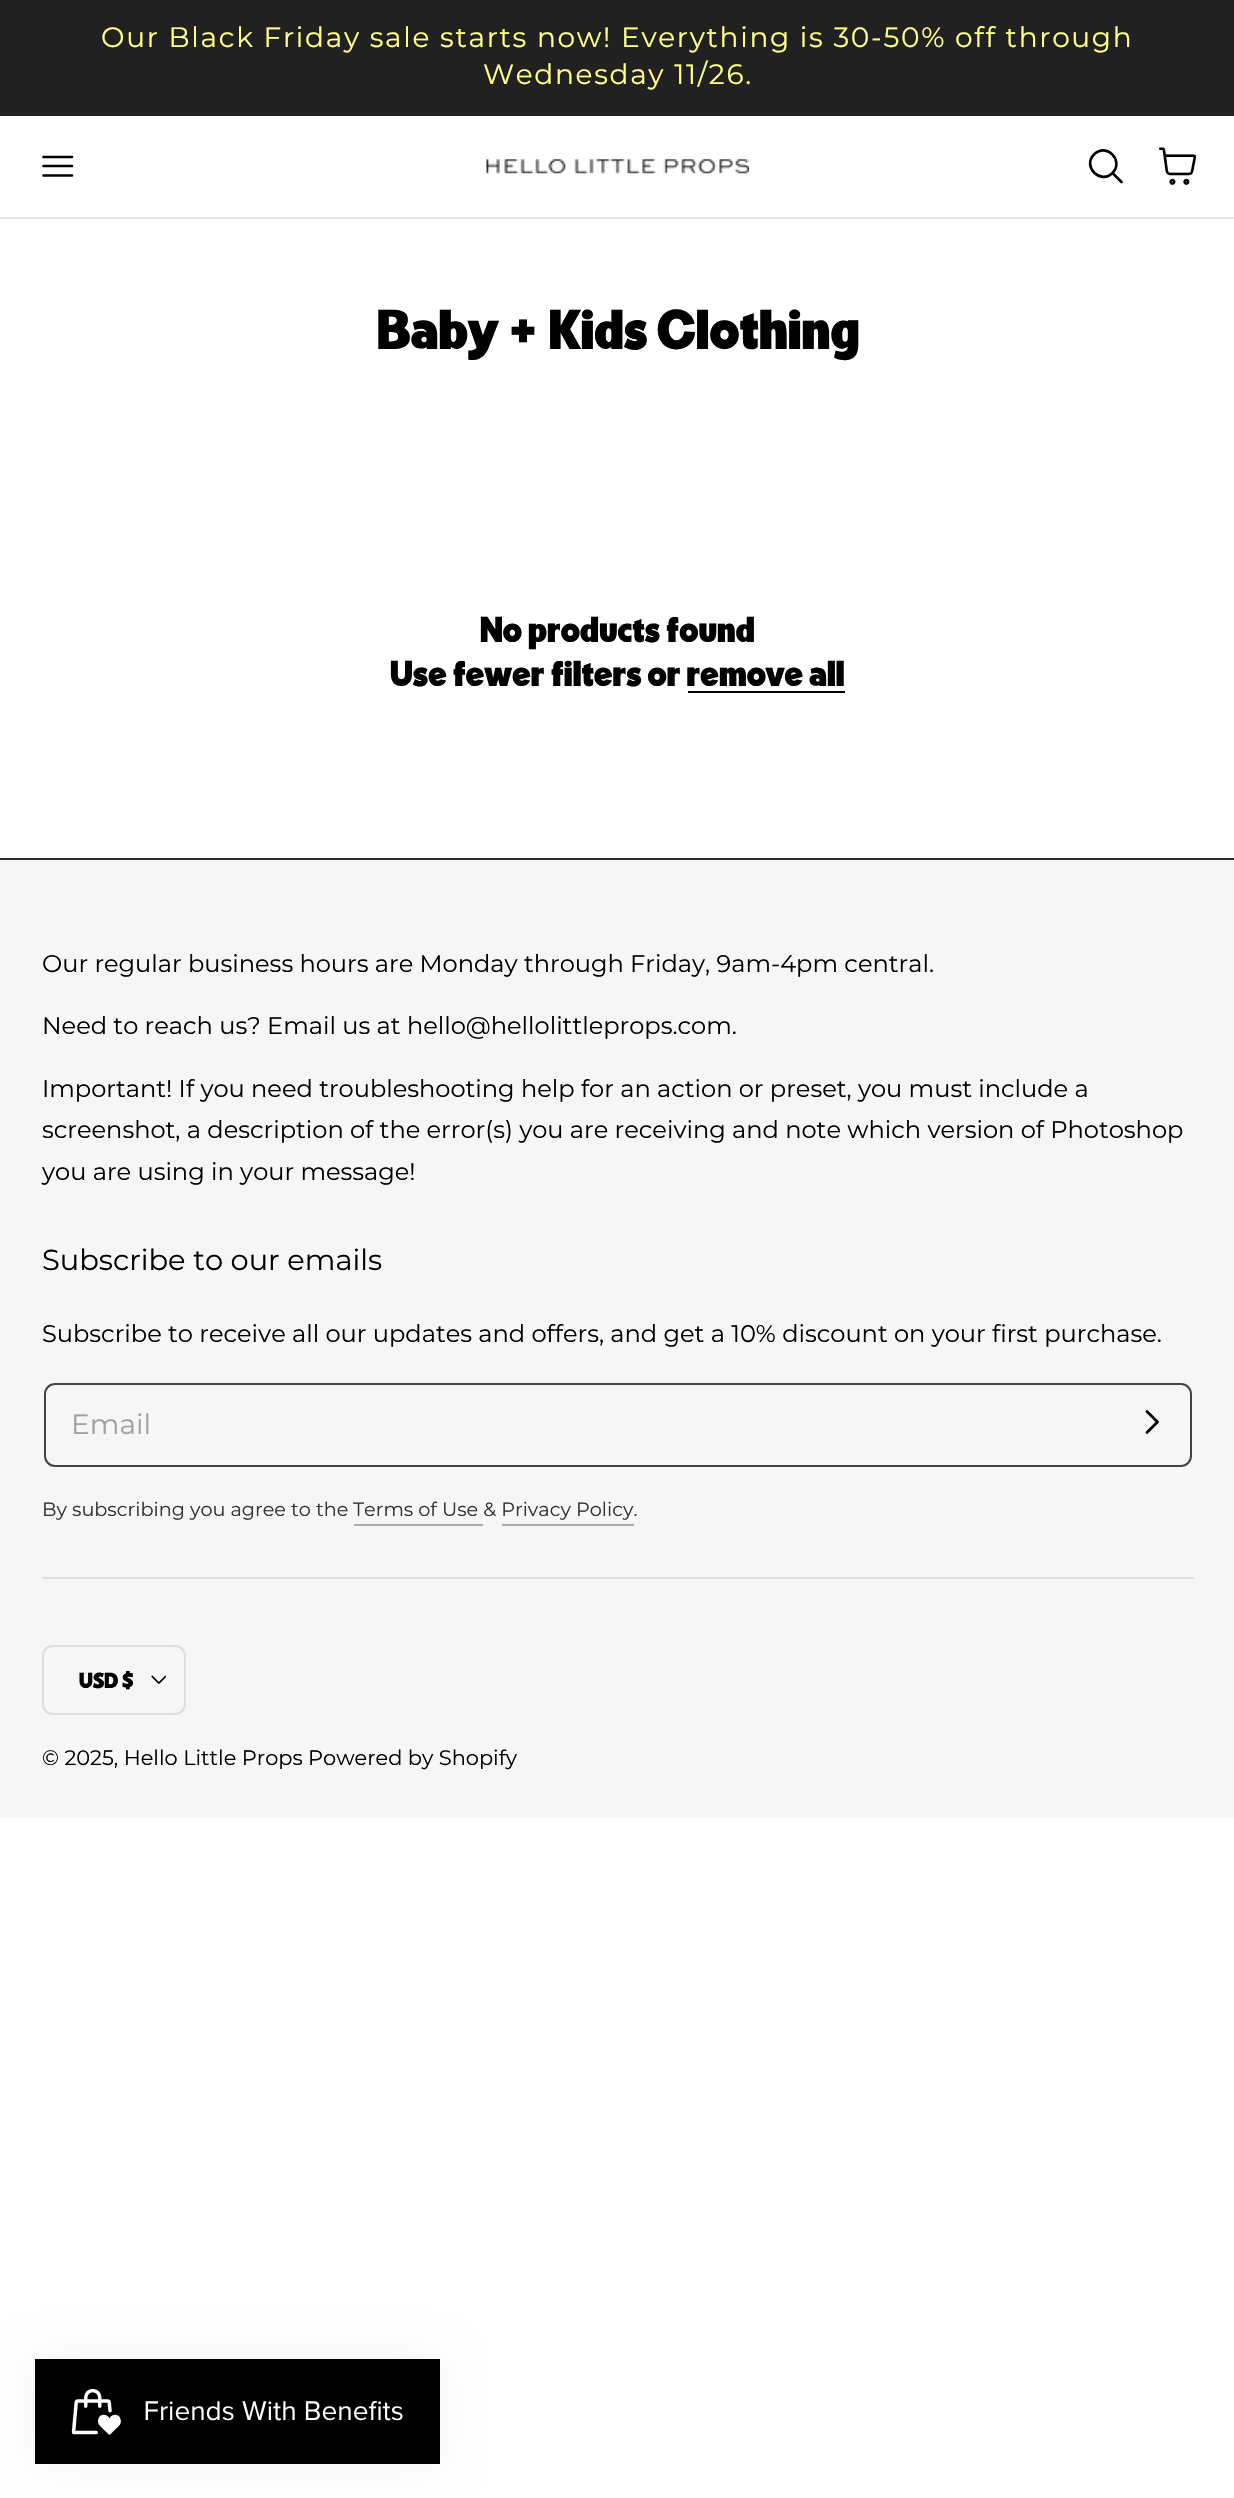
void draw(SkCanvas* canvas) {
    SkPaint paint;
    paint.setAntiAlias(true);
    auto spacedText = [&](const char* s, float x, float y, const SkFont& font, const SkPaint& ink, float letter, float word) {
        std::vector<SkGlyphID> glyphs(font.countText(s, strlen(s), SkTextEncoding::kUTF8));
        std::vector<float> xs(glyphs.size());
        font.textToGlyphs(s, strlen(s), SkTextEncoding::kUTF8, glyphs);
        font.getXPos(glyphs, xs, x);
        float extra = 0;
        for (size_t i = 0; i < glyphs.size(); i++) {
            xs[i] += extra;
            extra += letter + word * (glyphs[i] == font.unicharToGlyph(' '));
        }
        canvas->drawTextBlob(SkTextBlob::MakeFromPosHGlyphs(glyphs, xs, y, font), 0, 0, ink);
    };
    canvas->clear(0xFFFFFFFF);
    paint.setColor(0xFF212121);
    canvas->drawRect(SkRect::MakeXYWH(0, 0, 1234, 116), paint);
    SkFont font1(fontMgr->matchFamilyStyle("Montserrat", SkFontStyle::Normal()), 28);
    font1.setSubpixel(true);
    paint.setColor(0xFFFFFF8A);
    spacedText("Our Black Friday sale starts now! Everything is 30-50% off through", 101, 47, font1, paint, 1.67f, 0);
    spacedText("Wednesday 11/26.", 483, 84, font1, paint, 1.67f, 0);
    paint.setColor(0xFFE6E6E6);
    canvas->drawRect(SkRect::MakeXYWH(0, 217, 1234, 2), paint);
    paint.setStyle(SkPaint::kStroke_Style);
    paint.setStrokeWidth(2.6f);
    paint.setStrokeCap(SkPaint::kRound_Cap);
    paint.setStrokeJoin(SkPaint::kRound_Join);
    paint.setColor(0xFF000000);
    canvas->drawPath(SkPathBuilder().moveTo(43.5f, 157).lineTo(72, 157).moveTo(43.5f, 166).lineTo(72, 166).moveTo(43.5f, 175.5f).lineTo(72, 175.5f).detach(), paint);
    canvas->drawImageRect(SkImages::DeferredFromEncodedData(SkData::MakeFromFileName("img1.png")), SkRect::MakeXYWH(486, 159, 263, 15), SkSamplingOptions());
    canvas->drawPath(SkPathBuilder().moveTo(1121.5f, 182).lineTo(1112.5f, 173).moveTo(1112.5f, 173).cubicTo(1124.5f, 160.5f, 1106, 142, 1094, 154.5f).cubicTo(1082, 166.5f, 1100.5f, 185, 1112.5f, 173).close().detach(), paint);
    canvas->drawImageRect(SkImages::DeferredFromEncodedData(SkData::MakeFromFileName("img2.png")), SkRect::MakeXYWH(1159, 147, 38, 38), SkSamplingOptions());
    SkFont font2(fontMgr->matchFamilyStyle("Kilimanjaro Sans", SkFontStyle::Normal()), 53.9f);
    font2.setSubpixel(true);
    paint.setStyle(SkPaint::kFill_Style);
    canvas->drawString("Baby + Kids Clothing", 377, 349, font2, paint);
    SkFont font3(fontMgr->matchFamilyStyle("Kilimanjaro Sans", SkFontStyle::Normal()), 34.6f);
    font3.setSubpixel(true);
    canvas->drawString("No products found", 480, 642, font3, paint);
    canvas->drawString("Use fewer filters or remove all", 390, 686, font3, paint);
    canvas->drawRect(SkRect::MakeXYWH(688, 691, 157, 2), paint);
    paint.setColor(0xFF2C2D2E);
    canvas->drawRect(SkRect::MakeXYWH(0, 858, 1234, 2), paint);
    paint.setColor(0xFFF6F6F6);
    canvas->drawRect(SkRect::MakeXYWH(0, 860, 1234, 958), paint);
    SkFont font4(fontMgr->matchFamilyStyle("Montserrat", SkFontStyle::Normal()), 24.1f);
    font4.setSubpixel(true);
    paint.setColor(0xFF000000);
    canvas->drawString("Our regular business hours are Monday through Friday, 9am-4pm central.", 42, 972, font4, paint);
    canvas->drawString("Need to reach us? Email us at hello@hellolittleprops.com.", 42, 1034, font4, paint);
    canvas->drawString("Important! If you need troubleshooting help for an action or preset, you must include a", 42, 1097, font4, paint);
    canvas->drawString("screenshot, a description of the error(s) you are receiving and note which version of Photoshop", 42, 1138, font4, paint);
    canvas->drawString("you are using in your message!", 42, 1180, font4, paint);
    SkFont font5(fontMgr->matchFamilyStyle("Montserrat", SkFontStyle::Normal()), 28.9f);
    font5.setSubpixel(true);
    canvas->drawString("Subscribe to our emails", 42, 1270, font5, paint);
    canvas->drawString("Subscribe to receive all our updates and offers, and get a 10% discount on your first purchase.", 42, 1342, font4, paint);
    paint.setStyle(SkPaint::kStroke_Style);
    paint.setStrokeWidth(2);
    paint.setStrokeCap(SkPaint::kButt_Cap);
    paint.setStrokeJoin(SkPaint::kMiter_Join);
    paint.setColor(0xFF444444);
    canvas->drawRoundRect(SkRect::MakeXYWH(45, 1384, 1146, 82), 10, 10, paint);
    paint.setStyle(SkPaint::kFill_Style);
    paint.setColor(0xFFA0A0A0);
    canvas->drawString("Email", 71, 1434, font1, paint);
    paint.setStyle(SkPaint::kStroke_Style);
    paint.setStrokeWidth(2.8f);
    paint.setStrokeCap(SkPaint::kRound_Cap);
    paint.setStrokeJoin(SkPaint::kRound_Join);
    paint.setColor(0xFF000000);
    canvas->drawPath(SkPathBuilder().moveTo(1147, 1411.5f).lineTo(1157.5f, 1422).lineTo(1147, 1432.5f).detach(), paint);
    SkFont font6(fontMgr->matchFamilyStyle("Montserrat", SkFontStyle::Normal()), 19.25f);
    font6.setSubpixel(true);
    paint.setStyle(SkPaint::kFill_Style);
    paint.setColor(0xFF313131);
    canvas->drawString("By subscribing you agree to the", 42, 1516, font6, paint);
    canvas->drawString("Terms of Use & Privacy Policy.", 353, 1516, font6, paint);
    paint.setColor(0xFFACACAC);
    canvas->drawRect(SkRect::MakeXYWH(354, 1524, 129, 2), paint);
    canvas->drawRect(SkRect::MakeXYWH(502, 1524, 132, 2), paint);
    paint.setColor(0xFFDDDDDD);
    canvas->drawRect(SkRect::MakeXYWH(42, 1577, 1152, 2), paint);
    paint.setStyle(SkPaint::kStroke_Style);
    paint.setStrokeWidth(2);
    paint.setStrokeCap(SkPaint::kButt_Cap);
    paint.setStrokeJoin(SkPaint::kMiter_Join);
    canvas->drawRoundRect(SkRect::MakeXYWH(43, 1646, 142, 68), 10, 10, paint);
    SkFont font7(fontMgr->matchFamilyStyle("Kilimanjaro Sans", SkFontStyle::Normal()), 20.9f);
    font7.setSubpixel(true);
    paint.setStyle(SkPaint::kFill_Style);
    paint.setColor(0xFF000000);
    canvas->drawString("USD $", 79, 1688, font7, paint);
    canvas->drawImageRect(SkImages::DeferredFromEncodedData(SkData::MakeFromFileName("img3.png")), SkRect::MakeXYWH(151, 1675, 15, 9), SkSamplingOptions());
    SkFont font8(fontMgr->matchFamilyStyle("Montserrat", SkFontStyle::Normal()), 20.9f);
    font8.setSubpixel(true);
    canvas->drawString("© 2025, Hello Little Props Powered by Shopify", 42, 1765, font8, paint);
    paint.setColor(0x0D000000);
    paint.setMaskFilter(SkMaskFilter::MakeBlur(kNormal_SkBlurStyle, 22));
    canvas->drawRect(SkRect::MakeXYWH(35, 2359, 404, 105), paint);
    paint.setMaskFilter(nullptr);
    canvas->drawImageRect(SkImages::DeferredFromEncodedData(SkData::MakeFromFileName("img4.png")), SkRect::MakeXYWH(35, 2359, 405, 105), SkSamplingOptions());
}
